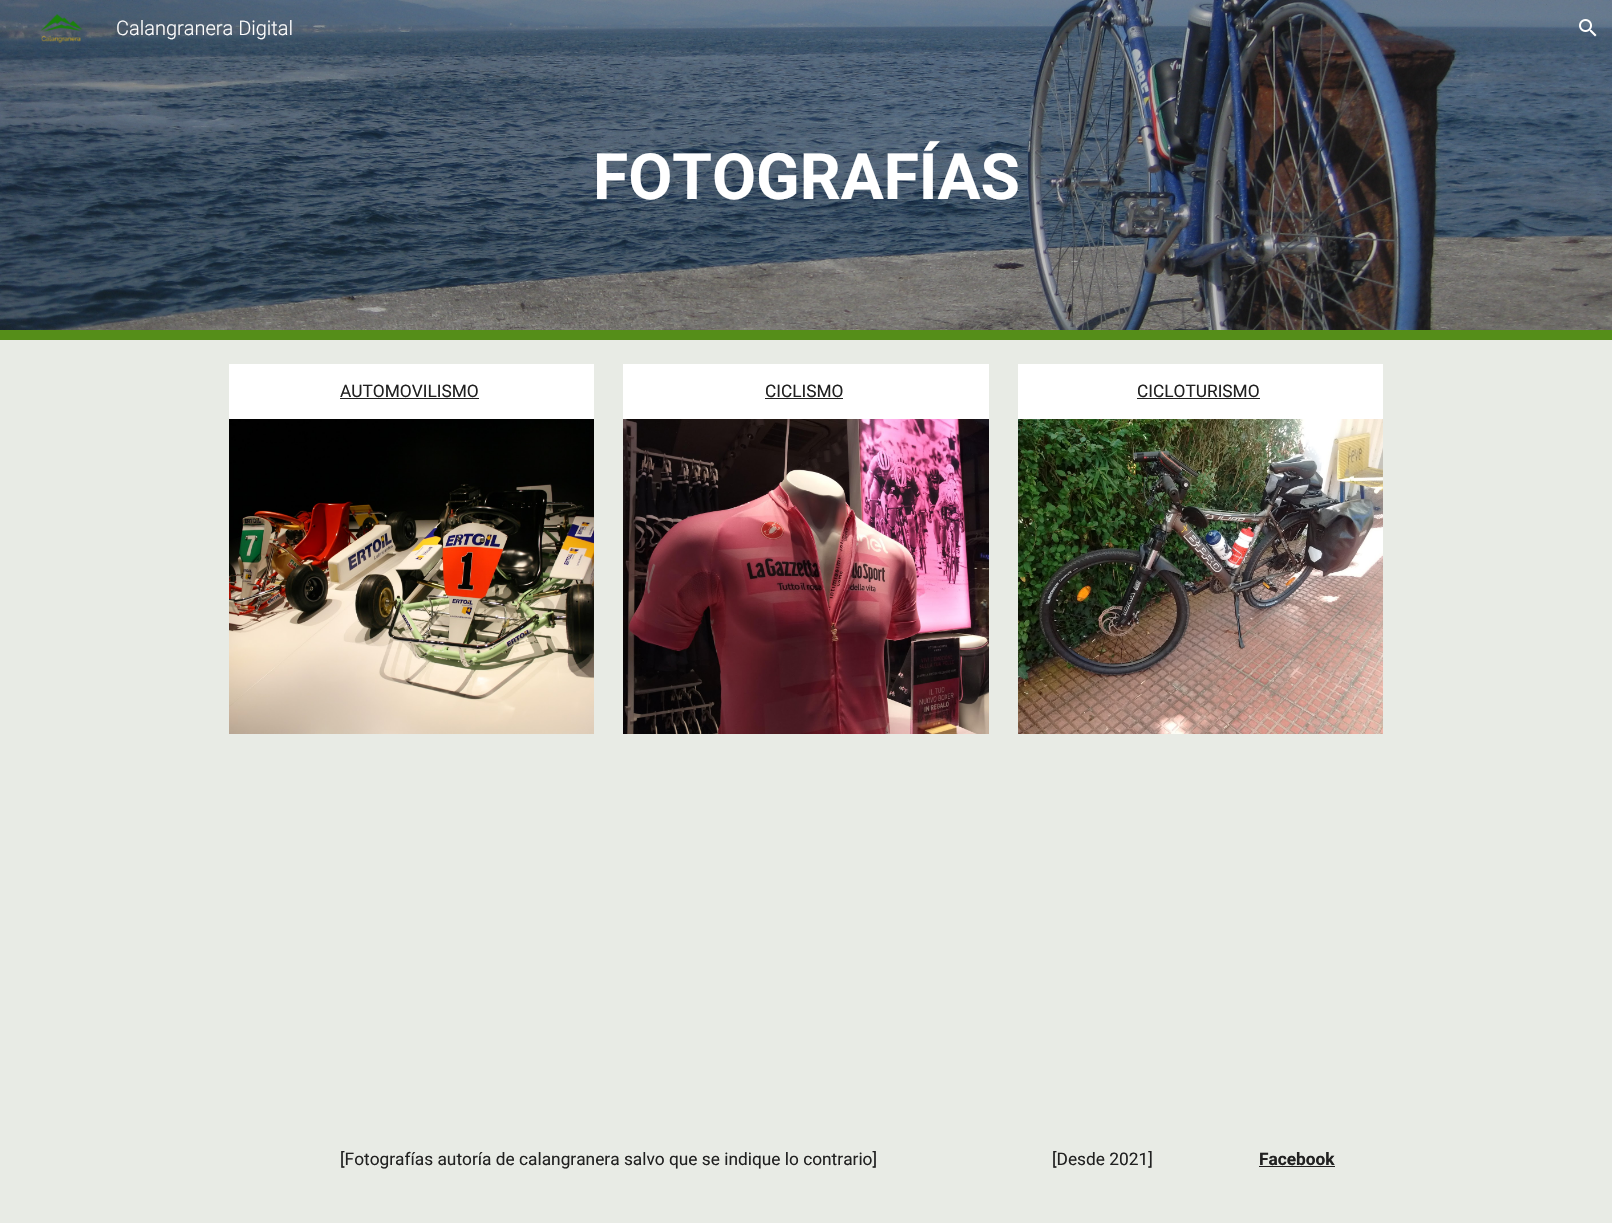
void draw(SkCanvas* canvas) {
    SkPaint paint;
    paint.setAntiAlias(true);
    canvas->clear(0xFFE8EBE5);
    canvas->drawImageRect(SkImages::DeferredFromEncodedData(SkData::MakeFromFileName("img3.png")), SkRect::MakeXYWH(0, 0, 1612, 330), SkSamplingOptions());
    canvas->drawImageRect(SkImages::DeferredFromEncodedData(SkData::MakeFromFileName("img1.png")), SkRect::MakeXYWH(40, 14, 43, 29), SkSamplingOptions());
    SkFont font1(fontMgr->matchFamilyStyle("Roboto", SkFontStyle(300, SkFontStyle::kNormal_Width, SkFontStyle::kUpright_Slant)), 20);
    font1.setSubpixel(true);
    paint.setColor(0xFFFFFFFF);
    canvas->drawString("Calangranera Digital", 116, 35, font1, paint);
    canvas->drawImageRect(SkImages::DeferredFromEncodedData(SkData::MakeFromFileName("img2.png")), SkRect::MakeXYWH(1579, 19, 18, 18), SkSamplingOptions());
    paint.setColor(0xFF558E19);
    canvas->drawRect(SkRect::MakeXYWH(0, 330, 1612, 10), paint);
    SkFont font2(fontMgr->matchFamilyStyle("Roboto", SkFontStyle::Bold()), 64);
    font2.setSubpixel(true);
    paint.setColor(0xFFFFFFFF);
    canvas->drawString("FOTOGRAFÍAS", 593, 199, font2, paint);
    canvas->drawRect(SkRect::MakeXYWH(229, 364, 365, 55), paint);
    SkFont font3(fontMgr->matchFamilyStyle("Roboto", SkFontStyle::Normal()), 17.3f);
    font3.setSubpixel(true);
    paint.setColor(0xFF212121);
    canvas->drawString("AUTOMOVILISMO", 340, 397, font3, paint);
    canvas->drawRect(SkRect::MakeXYWH(340, 398, 139, 1), paint);
    canvas->drawImageRect(SkImages::DeferredFromEncodedData(SkData::MakeFromFileName("img4.png")), SkRect::MakeXYWH(229, 419, 365, 315), SkSamplingOptions());
    paint.setColor(0xFFFFFFFF);
    canvas->drawRect(SkRect::MakeXYWH(623, 364, 366, 55), paint);
    paint.setColor(0xFF212121);
    canvas->drawString("CICLISMO", 765, 397, font3, paint);
    canvas->drawRect(SkRect::MakeXYWH(765, 398, 78, 1), paint);
    canvas->drawImageRect(SkImages::DeferredFromEncodedData(SkData::MakeFromFileName("img5.png")), SkRect::MakeXYWH(623, 419, 366, 315), SkSamplingOptions());
    paint.setColor(0xFFFFFFFF);
    canvas->drawRect(SkRect::MakeXYWH(1018, 364, 365, 55), paint);
    paint.setColor(0xFF212121);
    canvas->drawString("CICLOTURISMO", 1137, 397, font3, paint);
    canvas->drawRect(SkRect::MakeXYWH(1137, 398, 123, 1), paint);
    canvas->drawImageRect(SkImages::DeferredFromEncodedData(SkData::MakeFromFileName("img6.png")), SkRect::MakeXYWH(1018, 419, 365, 315), SkSamplingOptions());
    canvas->drawString("[Fotografías autoría de calangranera salvo que se indique lo contrario]", 340, 1165, font3, paint);
    canvas->drawString("[Desde 2021]", 1052, 1165, font3, paint);
    SkFont font4(fontMgr->matchFamilyStyle("Roboto", SkFontStyle::Bold()), 17.3f);
    font4.setSubpixel(true);
    canvas->drawString("Facebook", 1259, 1165, font4, paint);
    canvas->drawRect(SkRect::MakeXYWH(1259, 1166, 76, 1), paint);
}
